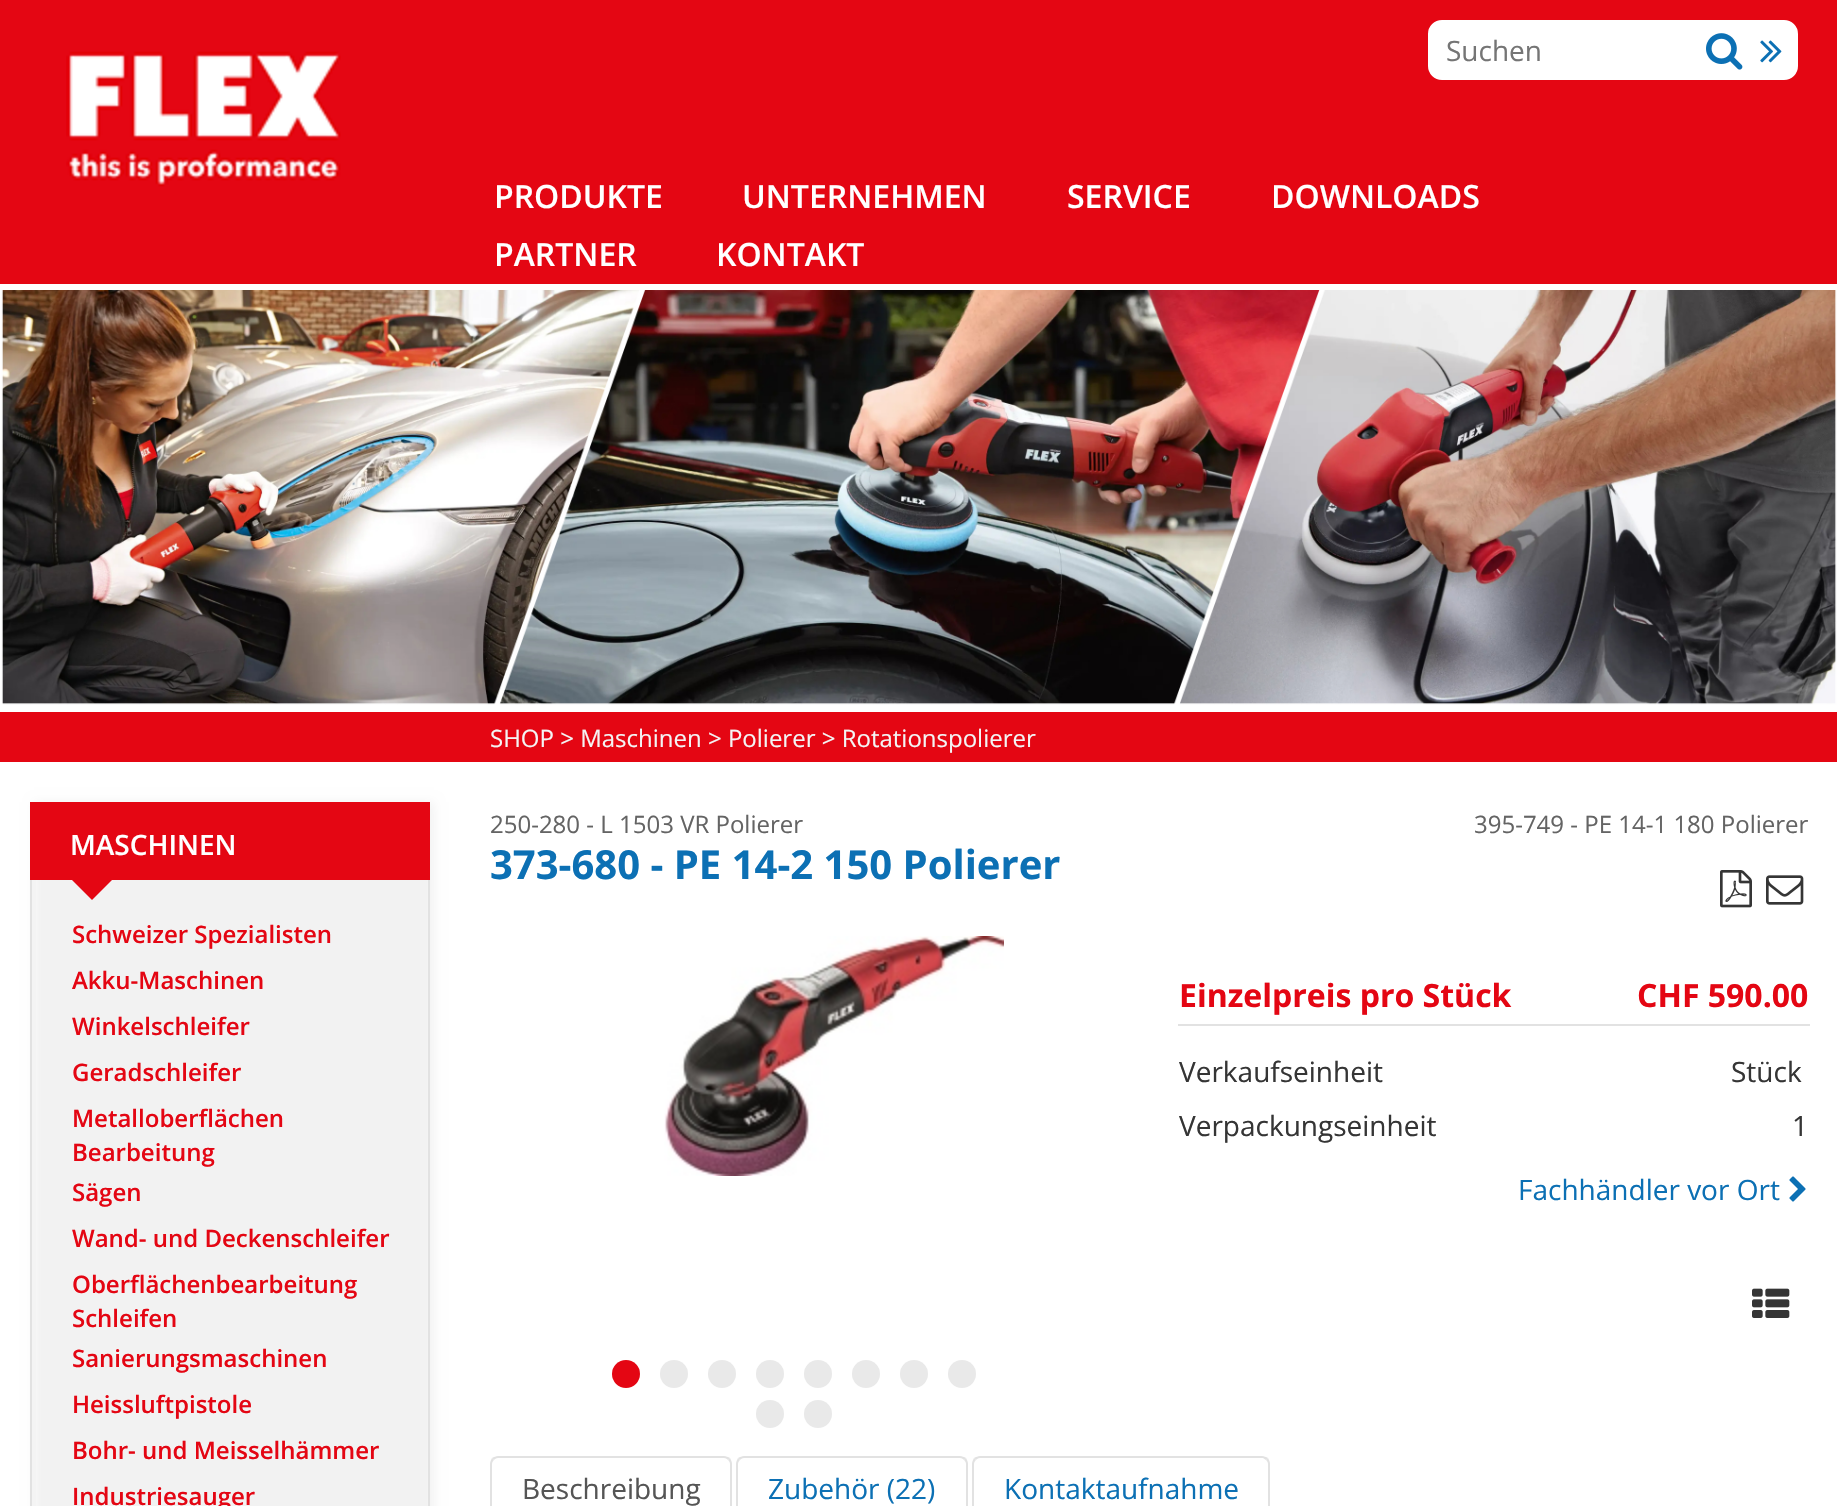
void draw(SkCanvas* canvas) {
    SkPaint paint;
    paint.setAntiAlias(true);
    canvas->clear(0xFFFFFFFF);
    paint.setColor(0xFFE40613);
    canvas->drawRect(SkRect::MakeXYWH(0, 0, 1837, 284), paint);
    canvas->drawImageRect(SkImages::DeferredFromEncodedData(SkData::MakeFromFileName("img1.png")), SkRect::MakeXYWH(66, 51, 275, 136), SkSamplingOptions());
    paint.setColor(0xFFFFFFFF);
    canvas->drawRoundRect(SkRect::MakeXYWH(1429, 21, 368, 58), 13, 13, paint);
    paint.setStyle(SkPaint::kStroke_Style);
    paint.setStrokeWidth(2);
    canvas->drawRoundRect(SkRect::MakeXYWH(1429, 21, 368, 58), 13, 13, paint);
    SkFont font1(fontMgr->matchFamilyStyle("Open Sans", SkFontStyle::Normal()), 28);
    font1.setSubpixel(true);
    paint.setStyle(SkPaint::kFill_Style);
    paint.setColor(0xFF757575);
    canvas->drawString("Suchen", 1446, 61, font1, paint);
    canvas->drawImageRect(SkImages::DeferredFromEncodedData(SkData::MakeFromFileName("img2.png")), SkRect::MakeXYWH(1706, 33, 37, 37), SkSamplingOptions());
    canvas->drawImageRect(SkImages::DeferredFromEncodedData(SkData::MakeFromFileName("img3.png")), SkRect::MakeXYWH(1760, 40, 22, 23), SkSamplingOptions());
    SkFont font2(fontMgr->matchFamilyStyle("Open Sans", SkFontStyle(600, SkFontStyle::kNormal_Width, SkFontStyle::kUpright_Slant)), 32);
    font2.setSubpixel(true);
    paint.setColor(0xFFFFFFFF);
    canvas->drawString("PRODUKTE", 494, 208, font2, paint);
    canvas->drawString("UNTERNEHMEN", 742, 208, font2, paint);
    canvas->drawString("SERVICE", 1067, 208, font2, paint);
    canvas->drawString("DOWNLOADS", 1271, 208, font2, paint);
    canvas->drawString("PARTNER", 494, 266, font2, paint);
    canvas->drawString("KONTAKT", 716, 266, font2, paint);
    paint.setColor(0xFFE40613);
    canvas->drawRect(SkRect::MakeXYWH(0, 712, 1837, 50), paint);
    canvas->drawImageRect(SkImages::DeferredFromEncodedData(SkData::MakeFromFileName("img4.png")), SkRect::MakeXYWH(1, 290, 1836, 415), SkSamplingOptions());
    paint.setColor(0x0D000000);
    paint.setMaskFilter(SkMaskFilter::MakeBlur(kNormal_SkBlurStyle, 5));
    canvas->drawRect(SkRect::MakeXYWH(34, 802, 400, 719), paint);
    paint.setMaskFilter(nullptr);
    paint.setColor(0xFFE40613);
    canvas->drawRect(SkRect::MakeXYWH(30, 802, 400, 78), paint);
    SkFont font3(fontMgr->matchFamilyStyle("Open Sans", SkFontStyle(600, SkFontStyle::kNormal_Width, SkFontStyle::kUpright_Slant)), 28);
    font3.setSubpixel(true);
    paint.setColor(0xFFFFFFFF);
    canvas->drawString("MASCHINEN", 70, 855, font3, paint);
    paint.setColor(0xFFF4F4F4);
    canvas->drawRect(SkRect::MakeXYWH(32, 880, 4, 626), paint);
    paint.setColor(0xFFE2E2E2);
    canvas->drawRect(SkRect::MakeXYWH(428, 880, 2, 626), paint);
    canvas->drawRect(SkRect::MakeXYWH(30, 880, 2, 626), paint);
    paint.setColor(0xFFE40613);
    canvas->drawPath(SkPathBuilder().moveTo(72, 880).lineTo(112, 880).lineTo(92, 900).close().detach(), paint);
    SkFont font4(fontMgr->matchFamilyStyle("Open Sans", SkFontStyle(600, SkFontStyle::kNormal_Width, SkFontStyle::kUpright_Slant)), 24);
    font4.setSubpixel(true);
    canvas->drawString("Schweizer Spezialisten", 72, 943, font4, paint);
    canvas->drawString("Akku-Maschinen", 72, 989, font4, paint);
    canvas->drawString("Winkelschleifer", 72, 1035, font4, paint);
    canvas->drawString("Geradschleifer", 72, 1081, font4, paint);
    canvas->drawString("Metalloberflächen", 72, 1127, font4, paint);
    canvas->drawString("Bearbeitung", 72, 1161, font4, paint);
    canvas->drawString("Sägen", 72, 1201, font4, paint);
    canvas->drawString("Wand- und Deckenschleifer", 72, 1247, font4, paint);
    canvas->drawString("Oberflächenbearbeitung", 72, 1293, font4, paint);
    canvas->drawString("Schleifen", 72, 1327, font4, paint);
    canvas->drawString("Sanierungsmaschinen", 72, 1367, font4, paint);
    canvas->drawString("Heissluftpistole", 72, 1413, font4, paint);
    canvas->drawString("Bohr- und Meisselhämmer", 72, 1459, font4, paint);
    canvas->drawString("Industriesauger", 72, 1505, font4, paint);
    SkFont font5(fontMgr->matchFamilyStyle("Open Sans", SkFontStyle::Normal()), 24);
    font5.setSubpixel(true);
    paint.setColor(0xFFF4F4F4);
    canvas->drawString("SHOP > Maschinen > Polierer > Rotationspolierer", 490, 747, font5, paint);
    paint.setColor(0xFF646464);
    canvas->drawString("250-280 - L 1503 VR Polierer", 490, 833, font5, paint);
    canvas->drawString("395-749 - PE 14-1 180 Polierer", 1474, 833, font5, paint);
    SkFont font6(fontMgr->matchFamilyStyle("Open Sans", SkFontStyle::Bold()), 40);
    font6.setSubpixel(true);
    paint.setColor(0xFF0C70B4);
    canvas->drawString("373-680 - PE 14-2 150 Polierer", 490, 879, font6, paint);
    canvas->drawImageRect(SkImages::DeferredFromEncodedData(SkData::MakeFromFileName("img5.png")), SkRect::MakeXYWH(1720, 870, 32, 38), SkSamplingOptions());
    canvas->drawImageRect(SkImages::DeferredFromEncodedData(SkData::MakeFromFileName("img6.png")), SkRect::MakeXYWH(1766, 875, 38, 30), SkSamplingOptions());
    canvas->drawImageRect(SkImages::DeferredFromEncodedData(SkData::MakeFromFileName("img7.png")), SkRect::MakeXYWH(664, 936, 340, 240), SkSamplingOptions());
    paint.setColor(0xFFE40613);
    canvas->drawCircle(626, 1374, 14, paint);
    paint.setColor(0xFFE9E9E9);
    canvas->drawCircle(674, 1374, 14, paint);
    canvas->drawCircle(722, 1374, 14, paint);
    canvas->drawCircle(770, 1374, 14, paint);
    canvas->drawCircle(818, 1374, 14, paint);
    canvas->drawCircle(866, 1374, 14, paint);
    canvas->drawCircle(914, 1374, 14, paint);
    canvas->drawCircle(962, 1374, 14, paint);
    canvas->drawCircle(770, 1414, 14, paint);
    canvas->drawCircle(818, 1414, 14, paint);
    SkFont font7(fontMgr->matchFamilyStyle("Open Sans", SkFontStyle::Bold()), 32);
    font7.setSubpixel(true);
    paint.setColor(0xFFE40613);
    canvas->drawString("Einzelpreis pro Stück", 1179, 1007, font7, paint);
    paint.setColor(0xFFE2E2E2);
    canvas->drawRect(SkRect::MakeXYWH(1178, 1024, 632, 2), paint);
    paint.setColor(0xFFE40613);
    canvas->drawString("CHF 590.00", 1637, 1007, font7, paint);
    paint.setColor(0xFF353535);
    canvas->drawString("Verkaufseinheit", 1179, 1082, font1, paint);
    canvas->drawString("Stück", 1731, 1082, font1, paint);
    canvas->drawString("Verpackungseinheit", 1179, 1136, font1, paint);
    canvas->drawString("1", 1792, 1136, font1, paint);
    paint.setColor(0xFF0C70B4);
    canvas->drawString("Fachhändler vor Ort", 1518, 1200, font1, paint);
    canvas->drawImageRect(SkImages::DeferredFromEncodedData(SkData::MakeFromFileName("img8.png")), SkRect::MakeXYWH(1789, 1176, 17, 26), SkSamplingOptions());
    canvas->drawImageRect(SkImages::DeferredFromEncodedData(SkData::MakeFromFileName("img9.png")), SkRect::MakeXYWH(1752, 1288, 38, 30), SkSamplingOptions());
    paint.setColor(0xFFE2E2E2);
    canvas->drawPath(SkPathBuilder().moveTo(498, 1456).cubicTo(496, 1456, 494, 1457, 492, 1458).lineTo(494, 1460).cubicTo(495, 1459, 496, 1458, 498, 1458).lineTo(724, 1458).cubicTo(726, 1458, 727, 1459, 728, 1460).lineTo(730, 1458).cubicTo(728, 1457, 726, 1456, 724, 1456).close().detach(), paint);
    canvas->drawPath(SkPathBuilder().moveTo(732, 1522).lineTo(732, 1464).cubicTo(732, 1462, 731, 1460, 730, 1458).lineTo(728, 1460).cubicTo(729, 1461, 730, 1462, 730, 1464).lineTo(730, 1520).close().detach(), paint);
    canvas->drawPath(SkPathBuilder().moveTo(490, 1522).lineTo(492, 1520).lineTo(492, 1464).cubicTo(492, 1462, 493, 1461, 494, 1460).lineTo(492, 1458).cubicTo(491, 1460, 490, 1462, 490, 1464).close().detach(), paint);
    paint.setColor(0xFF555555);
    canvas->drawString("Beschreibung", 522, 1499, font1, paint);
    paint.setColor(0xFFE2E2E2);
    canvas->drawPath(SkPathBuilder().moveTo(744, 1456).cubicTo(742, 1456, 740, 1457, 738, 1458).lineTo(740, 1460).cubicTo(741, 1459, 742, 1458, 744, 1458).lineTo(960, 1458).cubicTo(962, 1458, 963, 1459, 964, 1460).lineTo(966, 1458).cubicTo(964, 1457, 962, 1456, 960, 1456).close().detach(), paint);
    canvas->drawPath(SkPathBuilder().moveTo(968, 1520).lineTo(968, 1464).cubicTo(968, 1462, 967, 1460, 966, 1458).lineTo(964, 1460).cubicTo(965, 1461, 966, 1462, 966, 1464).lineTo(966, 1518).close().detach(), paint);
    canvas->drawPath(SkPathBuilder().moveTo(736, 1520).lineTo(738, 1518).lineTo(738, 1464).cubicTo(738, 1462, 739, 1461, 740, 1460).lineTo(738, 1458).cubicTo(737, 1460, 736, 1462, 736, 1464).close().detach(), paint);
    paint.setColor(0xFF0C70B4);
    canvas->drawString("Zubehör (22)", 768, 1499, font1, paint);
    paint.setColor(0xFFE2E2E2);
    canvas->drawPath(SkPathBuilder().moveTo(980, 1456).cubicTo(978, 1456, 976, 1457, 974, 1458).lineTo(976, 1460).cubicTo(977, 1459, 978, 1458, 980, 1458).lineTo(1263, 1458).lineTo(1266, 1460).lineTo(1268, 1458).cubicTo(1266, 1457, 1264, 1456, 1262, 1456).close().detach(), paint);
    canvas->drawPath(SkPathBuilder().moveTo(1270, 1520).lineTo(1270, 1464).cubicTo(1270, 1462, 1269, 1460, 1268, 1458).lineTo(1266, 1460).cubicTo(1267, 1461, 1268, 1462, 1268, 1464).lineTo(1268, 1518).close().detach(), paint);
    canvas->drawPath(SkPathBuilder().moveTo(972, 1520).lineTo(974, 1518).lineTo(974, 1464).cubicTo(974, 1462, 975, 1461, 976, 1460).lineTo(974, 1458).cubicTo(973, 1460, 972, 1462, 972, 1464).close().detach(), paint);
    paint.setColor(0xFF0C70B4);
    canvas->drawString("Kontaktaufnahme", 1004, 1499, font1, paint);
}
